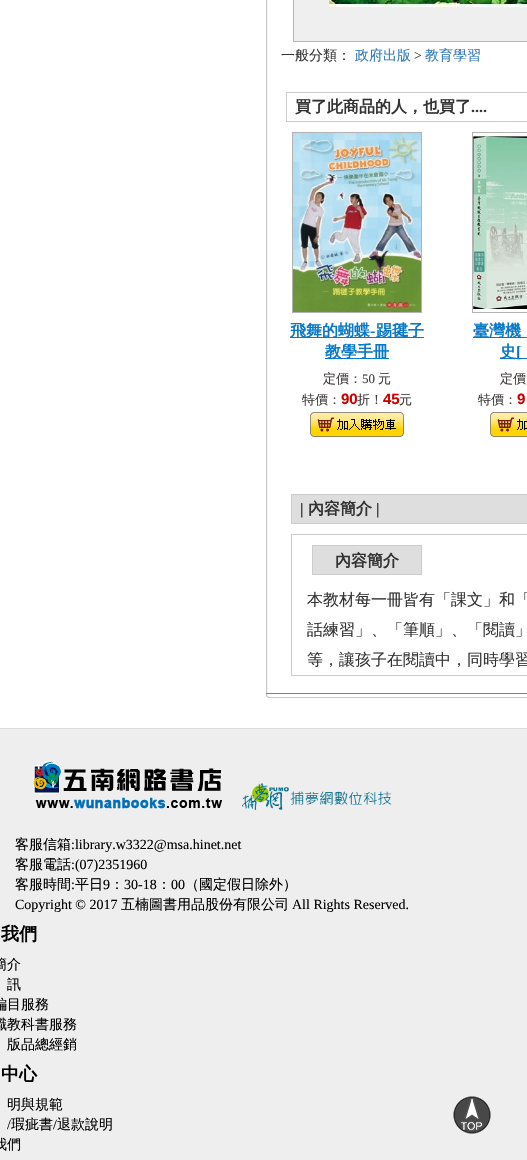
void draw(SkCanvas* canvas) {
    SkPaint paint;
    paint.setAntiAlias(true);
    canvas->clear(0xFFFFFFFF);
    canvas->drawImageRect(SkImages::DeferredFromEncodedData(SkData::MakeFromFileName("img1.png")), SkRect::MakeXYWH(266, 0, 2, 693), SkSamplingOptions());
    paint.setColor(0xFFEFEFEF);
    canvas->drawRect(SkRect::MakeXYWH(294, 0, 233, 41), paint);
    paint.setColor(0xFFB4B5B5);
    canvas->drawRect(SkRect::MakeXYWH(293, 41, 234, 1), paint);
    canvas->drawRect(SkRect::MakeXYWH(293, 0, 1, 42), paint);
    canvas->drawImageRect(SkImages::DeferredFromEncodedData(SkData::MakeFromFileName("img2.png")), SkRect::MakeXYWH(329, 0, 198, 7), SkSamplingOptions());
    SkFont font1(fontMgr->matchFamilyStyle("WenQuanYi Zen Hei", SkFontStyle(500, SkFontStyle::kNormal_Width, SkFontStyle::kUpright_Slant)), 14);
    font1.setSubpixel(true);
    paint.setColor(0xFF333333);
    canvas->drawString("一般分類：", 281, 60, font1, paint);
    paint.setColor(0xFF337AB7);
    canvas->drawString("政府出版", 355, 60, font1, paint);
    SkFont font2(fontMgr->matchFamilyStyle("Liberation Serif", SkFontStyle::Normal()), 14);
    font2.setSubpixel(true);
    paint.setColor(0xFF333333);
    canvas->drawString(">", 414, 60, font2, paint);
    paint.setColor(0xFF337AB7);
    canvas->drawString("教育學習", 425, 60, font1, paint);
    paint.setStyle(SkPaint::kStroke_Style);
    paint.setStrokeWidth(1);
    paint.setColor(0xFFCCCCCC);
    canvas->drawRect(SkRect::MakeXYWH(286.5f, 92.5f, 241, 29), paint);
    SkFont font3(fontMgr->matchFamilyStyle("WenQuanYi Zen Hei", SkFontStyle::Bold()), 16);
    font3.setSubpixel(true);
    paint.setStyle(SkPaint::kFill_Style);
    paint.setColor(0xFF333333);
    canvas->drawString("買了此商品的人，也買了", 295, 112, font3, paint);
    SkFont font4(fontMgr->matchFamilyStyle("Liberation Serif", SkFontStyle::Bold()), 16);
    font4.setSubpixel(true);
    canvas->drawString("....", 471, 112, font4, paint);
    paint.setColor(0xFFB3B3B3);
    canvas->drawRect(SkRect::MakeXYWH(292, 132, 130, 1), paint);
    canvas->drawRect(SkRect::MakeXYWH(421, 132, 1, 181), paint);
    canvas->drawRect(SkRect::MakeXYWH(292, 312, 130, 1), paint);
    canvas->drawRect(SkRect::MakeXYWH(292, 132, 1, 181), paint);
    canvas->drawImageRect(SkImages::DeferredFromEncodedData(SkData::MakeFromFileName("img3.png")), SkRect::MakeXYWH(293, 133, 128, 179), SkSamplingOptions());
    paint.setColor(0xFF0A78C8);
    canvas->drawRect(SkRect::MakeXYWH(290, 337, 134, 1), paint);
    canvas->drawString("飛舞的蝴蝶", 290, 336, font3, paint);
    canvas->drawString("-", 370, 336, font4, paint);
    canvas->drawString("踢毽子", 376, 336, font3, paint);
    canvas->drawRect(SkRect::MakeXYWH(325, 358, 64, 1), paint);
    canvas->drawString("教學手冊", 325, 357, font3, paint);
    SkFont font5(fontMgr->matchFamilyStyle("WenQuanYi Zen Hei", SkFontStyle(500, SkFontStyle::kNormal_Width, SkFontStyle::kUpright_Slant)), 13);
    font5.setSubpixel(true);
    paint.setColor(0xFF3F3B3A);
    canvas->drawString("定價：", 323, 383, font5, paint);
    SkFont font6(fontMgr->matchFamilyStyle("Liberation Serif", SkFontStyle::Normal()), 13);
    font6.setSubpixel(true);
    canvas->drawString("50", 362, 383, font6, paint);
    canvas->drawString("元", 378, 383, font5, paint);
    canvas->drawString("特價：", 302, 404, font5, paint);
    SkFont font7(fontMgr->matchFamilyStyle("Liberation Sans", SkFontStyle::Bold()), 15);
    font7.setSubpixel(true);
    paint.setColor(0xFFCD0000);
    canvas->drawString("90", 341, 404, font7, paint);
    paint.setColor(0xFF3F3B3A);
    canvas->drawString("折！", 357, 404, font5, paint);
    paint.setColor(0xFFCD0000);
    canvas->drawString("45", 383, 404, font7, paint);
    paint.setColor(0xFF3F3B3A);
    canvas->drawString("元", 399, 404, font5, paint);
    canvas->drawImageRect(SkImages::DeferredFromEncodedData(SkData::MakeFromFileName("img4.png")), SkRect::MakeXYWH(310, 412, 94, 25), SkSamplingOptions());
    paint.setColor(0xFFB3B3B3);
    canvas->drawRect(SkRect::MakeXYWH(472, 132, 55, 1), paint);
    canvas->drawRect(SkRect::MakeXYWH(472, 312, 55, 1), paint);
    canvas->drawRect(SkRect::MakeXYWH(472, 132, 1, 181), paint);
    canvas->drawImageRect(SkImages::DeferredFromEncodedData(SkData::MakeFromFileName("img5.png")), SkRect::MakeXYWH(473, 133, 54, 179), SkSamplingOptions());
    paint.setColor(0xFF0A78C8);
    canvas->drawRect(SkRect::MakeXYWH(473, 337, 54, 1), paint);
    canvas->drawString("臺灣機", 473, 336, font3, paint);
    canvas->drawRect(SkRect::MakeXYWH(500, 358, 27, 1), paint);
    canvas->drawString("史", 500, 357, font3, paint);
    canvas->drawString("[", 516, 357, font4, paint);
    paint.setColor(0xFF3F3B3A);
    canvas->drawString("定價", 500, 383, font5, paint);
    canvas->drawString("特價：", 478, 404, font5, paint);
    paint.setColor(0xFFCD0000);
    canvas->drawString("9", 517, 404, font7, paint);
    canvas->drawImageRect(SkImages::DeferredFromEncodedData(SkData::MakeFromFileName("img6.png")), SkRect::MakeXYWH(490, 412, 37, 25), SkSamplingOptions());
    paint.setColor(0xFFDEDEDE);
    canvas->drawRect(SkRect::MakeXYWH(291.5f, 494.5f, 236, 29), paint);
    paint.setStyle(SkPaint::kStroke_Style);
    paint.setColor(0xFFCCCCCC);
    canvas->drawRect(SkRect::MakeXYWH(291.5f, 494.5f, 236, 29), paint);
    paint.setStyle(SkPaint::kFill_Style);
    paint.setColor(0xFF333333);
    canvas->drawString("|", 300, 514, font4, paint);
    canvas->drawString("內容簡介", 308, 514, font3, paint);
    canvas->drawString("|", 376, 514, font4, paint);
    paint.setColor(0xFFCCCCCC);
    canvas->drawRect(SkRect::MakeXYWH(291, 534, 236, 1), paint);
    canvas->drawRect(SkRect::MakeXYWH(291, 675, 236, 1), paint);
    canvas->drawRect(SkRect::MakeXYWH(291, 534, 1, 142), paint);
    paint.setColor(0xFFDEDEDE);
    canvas->drawRect(SkRect::MakeXYWH(312.5f, 545.5f, 109, 29), paint);
    paint.setStyle(SkPaint::kStroke_Style);
    paint.setColor(0xFFCCCCCC);
    canvas->drawRect(SkRect::MakeXYWH(312.5f, 545.5f, 109, 29), paint);
    paint.setStyle(SkPaint::kFill_Style);
    paint.setColor(0xFF333333);
    canvas->drawString("內容簡介", 335, 566, font3, paint);
    SkFont font8(fontMgr->matchFamilyStyle("WenQuanYi Zen Hei", SkFontStyle(500, SkFontStyle::kNormal_Width, SkFontStyle::kUpright_Slant)), 16);
    font8.setSubpixel(true);
    canvas->drawString("本教材每一冊皆有「課文」和「", 307, 605, font8, paint);
    canvas->drawString("話練習」、「筆順」、「閱讀」", 307, 635, font8, paint);
    canvas->drawString("等，讓孩子在閱讀中，同時學習", 307, 665, font8, paint);
    paint.setColor(0xFF808080);
    canvas->drawRect(SkRect::MakeXYWH(266, 693, 261, 1), paint);
    canvas->drawImageRect(SkImages::DeferredFromEncodedData(SkData::MakeFromFileName("img7.png")), SkRect::MakeXYWH(266, 694, 261, 4), SkSamplingOptions());
    paint.setColor(0xFFEEEEEE);
    canvas->drawRect(SkRect::MakeXYWH(0, 729, 527, 431), paint);
    canvas->drawImageRect(SkImages::DeferredFromEncodedData(SkData::MakeFromFileName("img8.png")), SkRect::MakeXYWH(453, 1096, 38, 38), SkSamplingOptions());
    paint.setColor(0xFFDDDDDD);
    canvas->drawRect(SkRect::MakeXYWH(0, 728, 527, 1), paint);
    canvas->drawImageRect(SkImages::DeferredFromEncodedData(SkData::MakeFromFileName("img9.png")), SkRect::MakeXYWH(32, 760, 190, 49), SkSamplingOptions());
    canvas->drawImageRect(SkImages::DeferredFromEncodedData(SkData::MakeFromFileName("img10.png")), SkRect::MakeXYWH(242, 783, 150, 27), SkSamplingOptions());
    paint.setColor(0xFF000000);
    canvas->drawString("客服信箱", 15, 849, font1, paint);
    canvas->drawString(":library.w3322@msa.hinet.net", 71, 849, font2, paint);
    canvas->drawString("客服電話", 15, 869, font1, paint);
    canvas->drawString(":(07)2351960", 71, 869, font2, paint);
    canvas->drawString("客服時間", 15, 889, font1, paint);
    canvas->drawString(":", 71, 889, font2, paint);
    canvas->drawString("平日", 75, 889, font1, paint);
    canvas->drawString("9", 103, 889, font2, paint);
    canvas->drawString("：", 110, 889, font1, paint);
    canvas->drawString("30-18", 124, 889, font2, paint);
    canvas->drawString("：", 157, 889, font1, paint);
    canvas->drawString("00", 171, 889, font2, paint);
    canvas->drawString("（國定假日除外）", 185, 889, font1, paint);
    canvas->drawString("Copyright © 2017", 15, 909, font2, paint);
    canvas->drawString("五楠圖書用品股份有限公司", 121, 909, font1, paint);
    canvas->drawString("All Rights Reserved.", 292, 909, font2, paint);
    SkFont font9(fontMgr->matchFamilyStyle("WenQuanYi Zen Hei", SkFontStyle::Bold()), 18);
    font9.setSubpixel(true);
    canvas->drawString("我們", 1, 940, font9, paint);
    canvas->drawString("簡介", -7, 969, font1, paint);
    canvas->drawString("訊", 7, 989, font1, paint);
    canvas->drawString("編目服務", -7, 1009, font1, paint);
    canvas->drawString("職教科書服務", -7, 1029, font1, paint);
    canvas->drawString("版品總經銷", 7, 1049, font1, paint);
    canvas->drawString("中心", 1, 1080, font9, paint);
    canvas->drawString("明與規範", 7, 1109, font1, paint);
    canvas->drawString("/", 7, 1129, font2, paint);
    canvas->drawString("瑕疵書", 11, 1129, font1, paint);
    canvas->drawString("/", 53, 1129, font2, paint);
    canvas->drawString("退款說明", 57, 1129, font1, paint);
    canvas->drawString("我們", -7, 1149, font1, paint);
}
